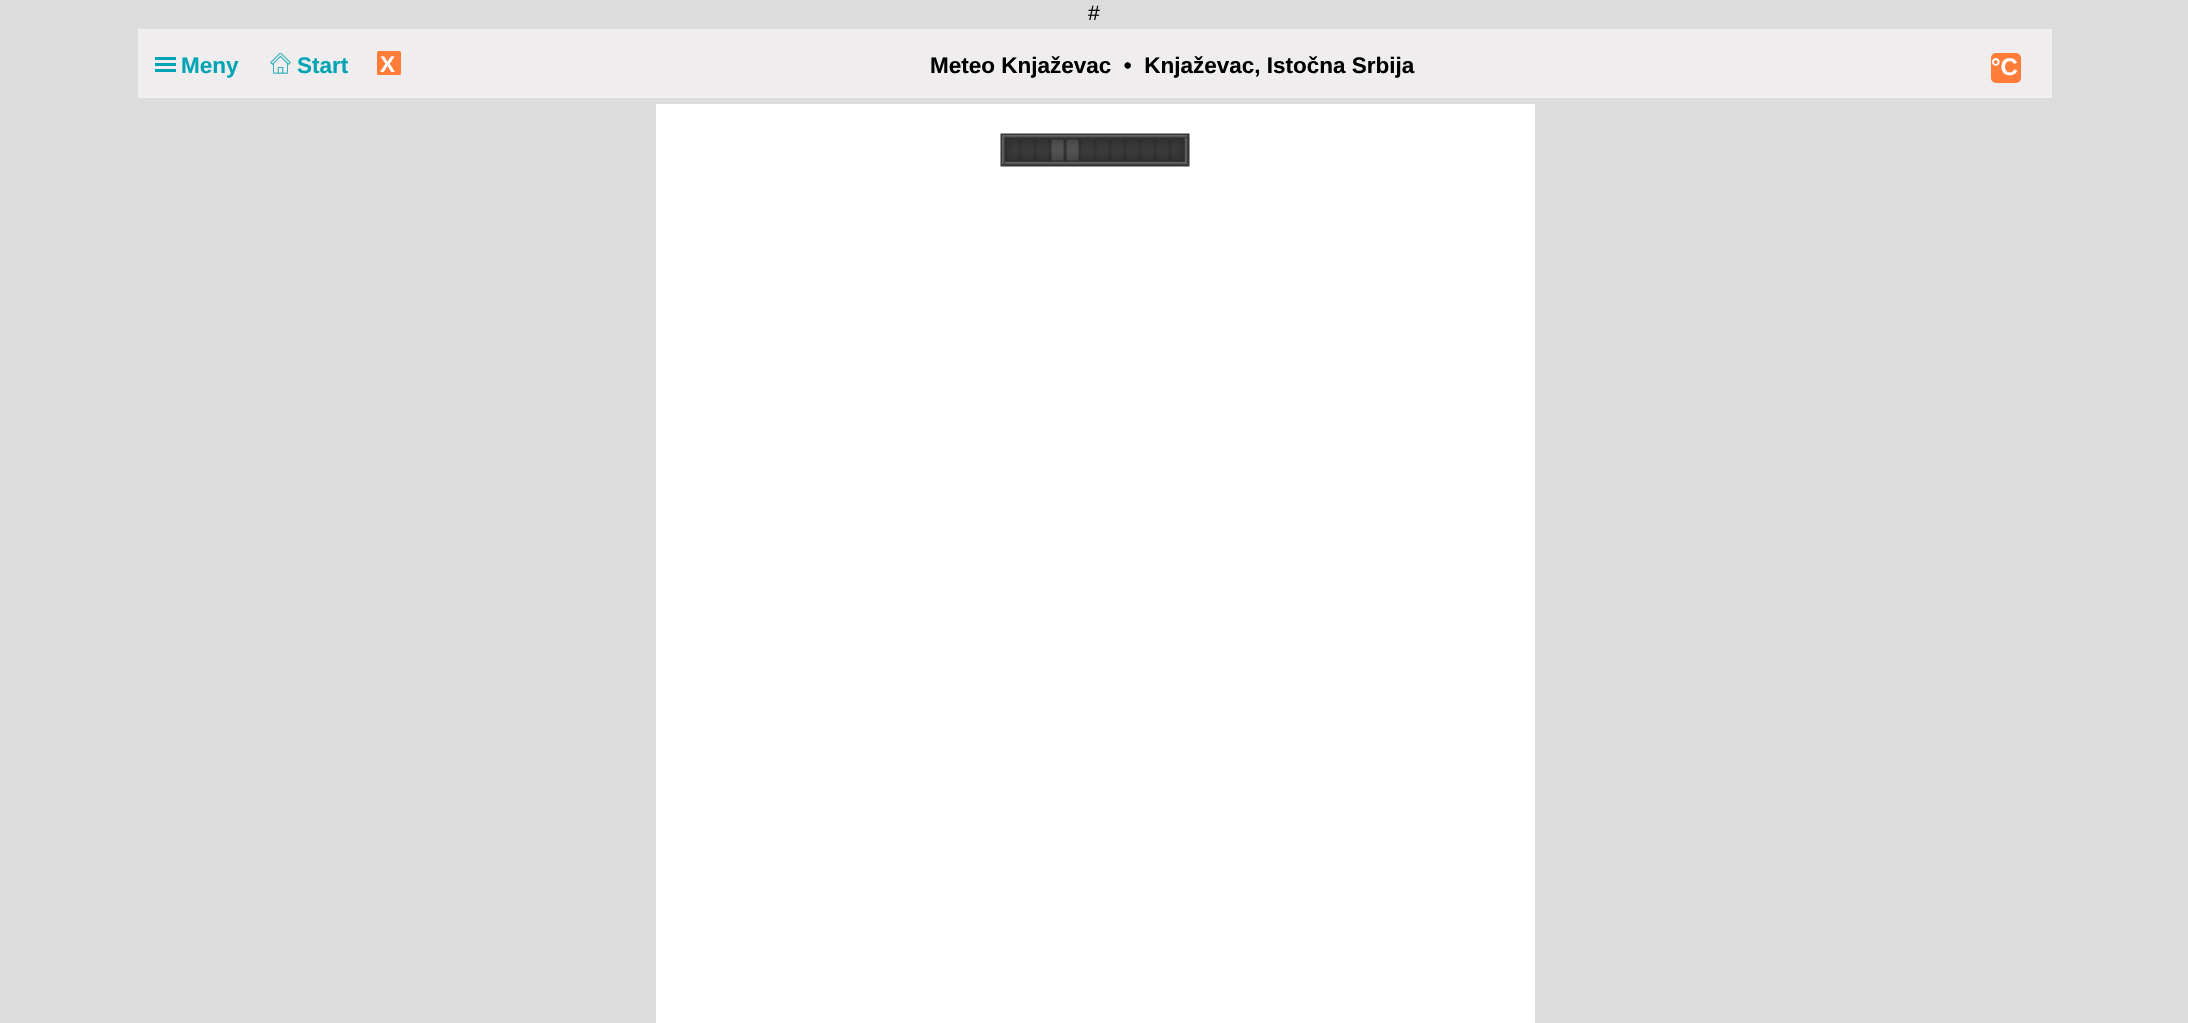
void draw(SkCanvas* canvas) {
    SkPaint paint;
    paint.setAntiAlias(true);
    canvas->clear(0xFFDCDCDC);
    SkFont font1(fontMgr->matchFamilyStyle("Liberation Sans", SkFontStyle::Normal()), 21);
    font1.setSubpixel(true);
    paint.setColor(0xFF000000);
    canvas->drawString("#", 1088, 20, font1, paint);
    paint.setStyle(SkPaint::kStroke_Style);
    paint.setStrokeWidth(2);
    paint.setColor(0xFFF0F0F0);
    canvas->drawRect(SkRect::MakeXYWH(139, 30, 1912, 67), paint);
    paint.setStyle(SkPaint::kFill_Style);
    paint.setColor(0xFFEFEDED);
    canvas->drawRect(SkRect::MakeXYWH(140, 30, 1911, 66), paint);
    paint.setColor(0xFF01A4B4);
    canvas->drawRect(SkRect::MakeXYWH(155, 57, 21, 3), paint);
    SkFont font2(fontMgr->matchFamilyStyle("Liberation Sans", SkFontStyle::Bold()), 22.5f);
    font2.setSubpixel(true);
    canvas->drawString("Meny", 181, 73, font2, paint);
    canvas->drawRect(SkRect::MakeXYWH(155, 63, 21, 3), paint);
    canvas->drawRect(SkRect::MakeXYWH(155, 69, 21, 3), paint);
    canvas->drawImageRect(SkImages::DeferredFromEncodedData(SkData::MakeFromFileName("img1.png")), SkRect::MakeXYWH(270, 53, 21, 21), SkSamplingOptions());
    canvas->drawString("Start", 297, 73, font2, paint);
    paint.setColor(0xFFFF7C39);
    canvas->drawRoundRect(SkRect::MakeXYWH(377, 51, 24, 24), 1.5f, 1.5f, paint);
    paint.setColor(0xFFFFFFFF);
    canvas->drawString("X", 380, 72, font2, paint);
    paint.setColor(0xFF000000);
    canvas->drawString("Meteo Knjaževac  •  Knjaževac, Istočna Srbija", 930, 73, font2, paint);
    paint.setColor(0xFFFF7C39);
    canvas->drawRoundRect(SkRect::MakeXYWH(1991, 53, 30, 30), 5, 5, paint);
    SkFont font3(fontMgr->matchFamilyStyle("Liberation Sans", SkFontStyle::Bold()), 24);
    font3.setSubpixel(true);
    paint.setColor(0xFFFFFFFF);
    canvas->drawString("°C", 1991, 75, font3, paint);
    canvas->drawRect(SkRect::MakeXYWH(656, 104, 879, 919), paint);
    canvas->drawImageRect(SkImages::DeferredFromEncodedData(SkData::MakeFromFileName("img2.png")), SkRect::MakeXYWH(1000, 133, 190, 34), SkSamplingOptions());
}
